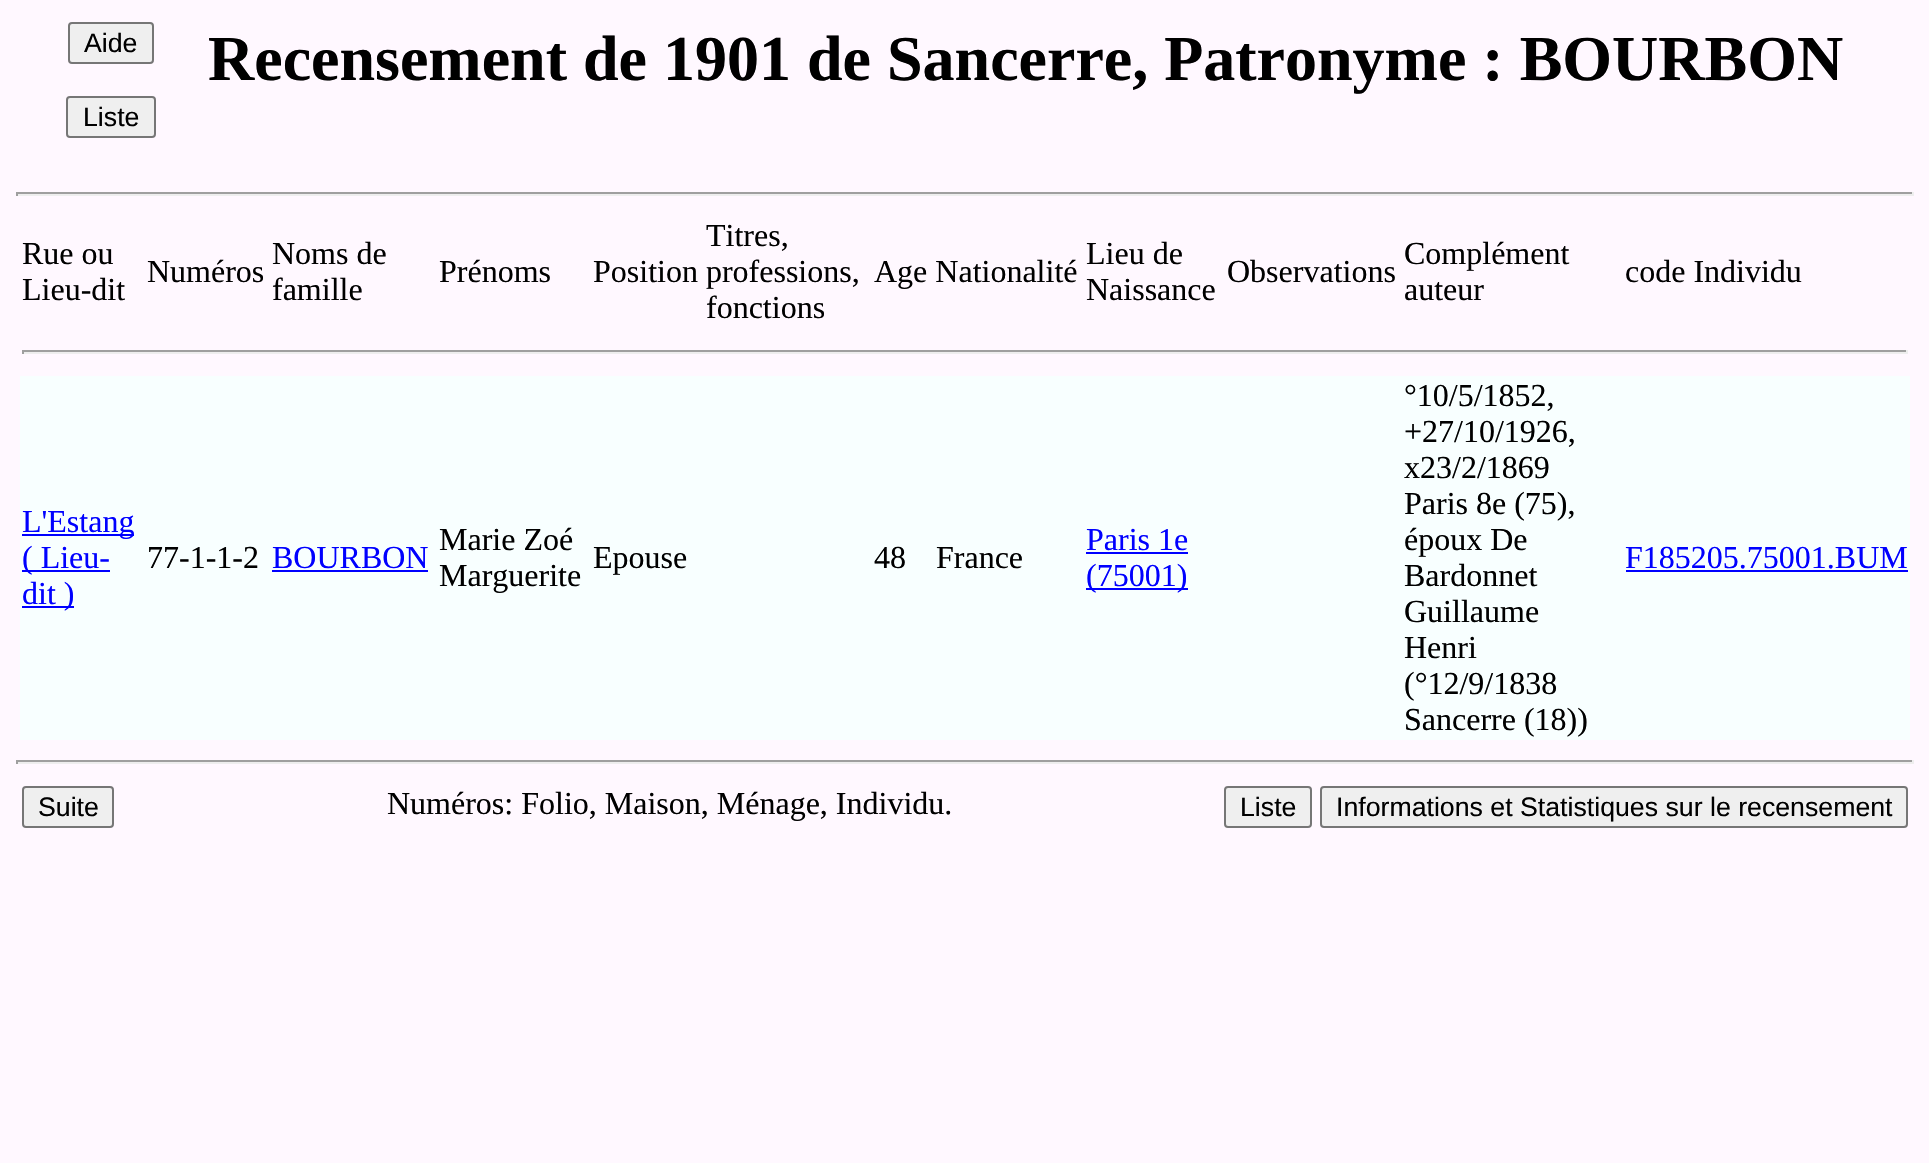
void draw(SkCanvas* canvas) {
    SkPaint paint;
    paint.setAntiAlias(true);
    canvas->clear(0xFFFFF8FF);
    paint.setColor(0xFFEFEFEF);
    canvas->drawRoundRect(SkRect::MakeXYWH(69, 23, 84, 40), 3, 3, paint);
    paint.setStyle(SkPaint::kStroke_Style);
    paint.setStrokeWidth(2);
    paint.setColor(0xFF767676);
    canvas->drawRoundRect(SkRect::MakeXYWH(69, 23, 84, 40), 3, 3, paint);
    SkFont font1(fontMgr->matchFamilyStyle("Liberation Sans", SkFontStyle::Normal()), 26.7f);
    font1.setSubpixel(true);
    paint.setStyle(SkPaint::kFill_Style);
    paint.setColor(0xFF000000);
    canvas->drawString("Aide", 84, 52, font1, paint);
    paint.setColor(0xFFEFEFEF);
    canvas->drawRoundRect(SkRect::MakeXYWH(67, 97, 88, 40), 3, 3, paint);
    paint.setStyle(SkPaint::kStroke_Style);
    paint.setColor(0xFF767676);
    canvas->drawRoundRect(SkRect::MakeXYWH(67, 97, 88, 40), 3, 3, paint);
    paint.setStyle(SkPaint::kFill_Style);
    paint.setColor(0xFF000000);
    canvas->drawString("Liste", 83, 126, font1, paint);
    SkFont font2(fontMgr->matchFamilyStyle("Liberation Serif", SkFontStyle::Bold()), 64);
    font2.setSubpixel(true);
    canvas->drawString("Recensement de 1901 de Sancerre, Patronyme : BOURBON", 208, 80, font2, paint);
    paint.setColor(0xFF9F9F9F);
    canvas->drawRect(SkRect::MakeXYWH(16, 192, 1898, 2), paint);
    paint.setColor(0xFFEEEEEE);
    canvas->drawRect(SkRect::MakeXYWH(1912, 192, 2, 4), paint);
    canvas->drawRect(SkRect::MakeXYWH(16, 194, 1898, 2), paint);
    paint.setColor(0xFF9F9F9F);
    canvas->drawRect(SkRect::MakeXYWH(16, 192, 2, 4), paint);
    SkFont font3(fontMgr->matchFamilyStyle("Liberation Serif", SkFontStyle::Normal()), 32);
    font3.setSubpixel(true);
    paint.setColor(0xFF000000);
    canvas->drawString("Rue ou", 22, 264, font3, paint);
    canvas->drawString("Lieu-dit", 22, 300, font3, paint);
    canvas->drawString("Numéros", 147, 282, font3, paint);
    canvas->drawString("Noms de", 272, 264, font3, paint);
    canvas->drawString("famille", 272, 300, font3, paint);
    canvas->drawString("Prénoms", 439, 282, font3, paint);
    canvas->drawString("Titres,", 706, 246, font3, paint);
    canvas->drawString("fonctions", 706, 318, font3, paint);
    canvas->drawString("Lieu de", 1086, 264, font3, paint);
    canvas->drawString("Naissance", 1086, 300, font3, paint);
    canvas->drawString("Complément", 1404, 264, font3, paint);
    canvas->drawString("auteur", 1404, 300, font3, paint);
    canvas->drawString("Position professions,", 593, 282, font3, paint);
    canvas->drawString("Age Nationalité", 874, 282, font3, paint);
    canvas->drawString("Observations", 1227, 282, font3, paint);
    canvas->drawString("code Individu", 1625, 282, font3, paint);
    paint.setColor(0xFF9F9F9F);
    canvas->drawRect(SkRect::MakeXYWH(22, 350, 1886, 2), paint);
    paint.setColor(0xFFEEEEEE);
    canvas->drawRect(SkRect::MakeXYWH(1906, 350, 2, 4), paint);
    canvas->drawRect(SkRect::MakeXYWH(22, 352, 1886, 2), paint);
    paint.setColor(0xFF9F9F9F);
    canvas->drawRect(SkRect::MakeXYWH(22, 350, 2, 4), paint);
    paint.setColor(0xFFF8FFFF);
    canvas->drawRect(SkRect::MakeXYWH(20, 376, 1890, 364), paint);
    paint.setColor(0xFF0000FF);
    canvas->drawRect(SkRect::MakeXYWH(22, 534, 112, 2), paint);
    canvas->drawString("L'Estang", 22, 532, font3, paint);
    canvas->drawRect(SkRect::MakeXYWH(22, 570, 88, 2), paint);
    canvas->drawString("( Lieu-", 22, 568, font3, paint);
    canvas->drawRect(SkRect::MakeXYWH(22, 606, 52, 2), paint);
    canvas->drawString("dit )", 22, 604, font3, paint);
    paint.setColor(0xFF000000);
    canvas->drawString("77-1-1-2", 147, 568, font3, paint);
    paint.setColor(0xFF0000FF);
    canvas->drawString("BOURBON", 272, 568, font3, paint);
    canvas->drawRect(SkRect::MakeXYWH(272, 570, 156, 2), paint);
    paint.setColor(0xFF000000);
    canvas->drawString("Marie Zoé", 439, 550, font3, paint);
    canvas->drawString("Marguerite", 439, 586, font3, paint);
    canvas->drawString("Epouse", 593, 568, font3, paint);
    canvas->drawString("48", 874, 568, font3, paint);
    canvas->drawString("France", 936, 568, font3, paint);
    paint.setColor(0xFF0000FF);
    canvas->drawString("Paris 1e", 1086, 550, font3, paint);
    canvas->drawRect(SkRect::MakeXYWH(1086, 552, 102, 2), paint);
    canvas->drawRect(SkRect::MakeXYWH(1086, 588, 102, 2), paint);
    canvas->drawString("(75001)", 1086, 586, font3, paint);
    paint.setColor(0xFF000000);
    canvas->drawString("°10/5/1852,", 1404, 406, font3, paint);
    canvas->drawString("+27/10/1926,", 1404, 442, font3, paint);
    canvas->drawString("x23/2/1869", 1404, 478, font3, paint);
    canvas->drawString("Paris 8e (75),", 1404, 514, font3, paint);
    canvas->drawString("époux De", 1404, 550, font3, paint);
    canvas->drawString("Bardonnet", 1404, 586, font3, paint);
    canvas->drawString("Guillaume", 1404, 622, font3, paint);
    canvas->drawString("Henri", 1404, 658, font3, paint);
    canvas->drawString("(°12/9/1838", 1404, 694, font3, paint);
    canvas->drawString("Sancerre (18))", 1404, 730, font3, paint);
    paint.setColor(0xFF0000FF);
    canvas->drawString("F185205.75001.BUM", 1625, 568, font3, paint);
    canvas->drawRect(SkRect::MakeXYWH(1626, 570, 282, 2), paint);
    paint.setColor(0xFF9F9F9F);
    canvas->drawRect(SkRect::MakeXYWH(16, 760, 1898, 2), paint);
    paint.setColor(0xFFEEEEEE);
    canvas->drawRect(SkRect::MakeXYWH(1912, 760, 2, 4), paint);
    canvas->drawRect(SkRect::MakeXYWH(16, 762, 1898, 2), paint);
    paint.setColor(0xFF9F9F9F);
    canvas->drawRect(SkRect::MakeXYWH(16, 760, 2, 4), paint);
    paint.setColor(0xFFEFEFEF);
    canvas->drawRoundRect(SkRect::MakeXYWH(23, 787, 90, 40), 3, 3, paint);
    paint.setStyle(SkPaint::kStroke_Style);
    paint.setColor(0xFF767676);
    canvas->drawRoundRect(SkRect::MakeXYWH(23, 787, 90, 40), 3, 3, paint);
    paint.setStyle(SkPaint::kFill_Style);
    paint.setColor(0xFF000000);
    canvas->drawString("Suite", 38, 816, font1, paint);
    canvas->drawString("Numéros: Folio, Maison, Ménage, Individu.", 387, 814, font3, paint);
    paint.setColor(0xFFEFEFEF);
    canvas->drawRoundRect(SkRect::MakeXYWH(1225, 787, 86, 40), 3, 3, paint);
    paint.setStyle(SkPaint::kStroke_Style);
    paint.setColor(0xFF767676);
    canvas->drawRoundRect(SkRect::MakeXYWH(1225, 787, 86, 40), 3, 3, paint);
    paint.setStyle(SkPaint::kFill_Style);
    paint.setColor(0xFF000000);
    canvas->drawString("Liste", 1240, 816, font1, paint);
    paint.setColor(0xFFEFEFEF);
    canvas->drawRoundRect(SkRect::MakeXYWH(1321, 787, 586, 40), 3, 3, paint);
    paint.setStyle(SkPaint::kStroke_Style);
    paint.setColor(0xFF767676);
    canvas->drawRoundRect(SkRect::MakeXYWH(1321, 787, 586, 40), 3, 3, paint);
    paint.setStyle(SkPaint::kFill_Style);
    paint.setColor(0xFF000000);
    canvas->drawString("Informations et Statistiques sur le recensement", 1336, 816, font1, paint);
}
